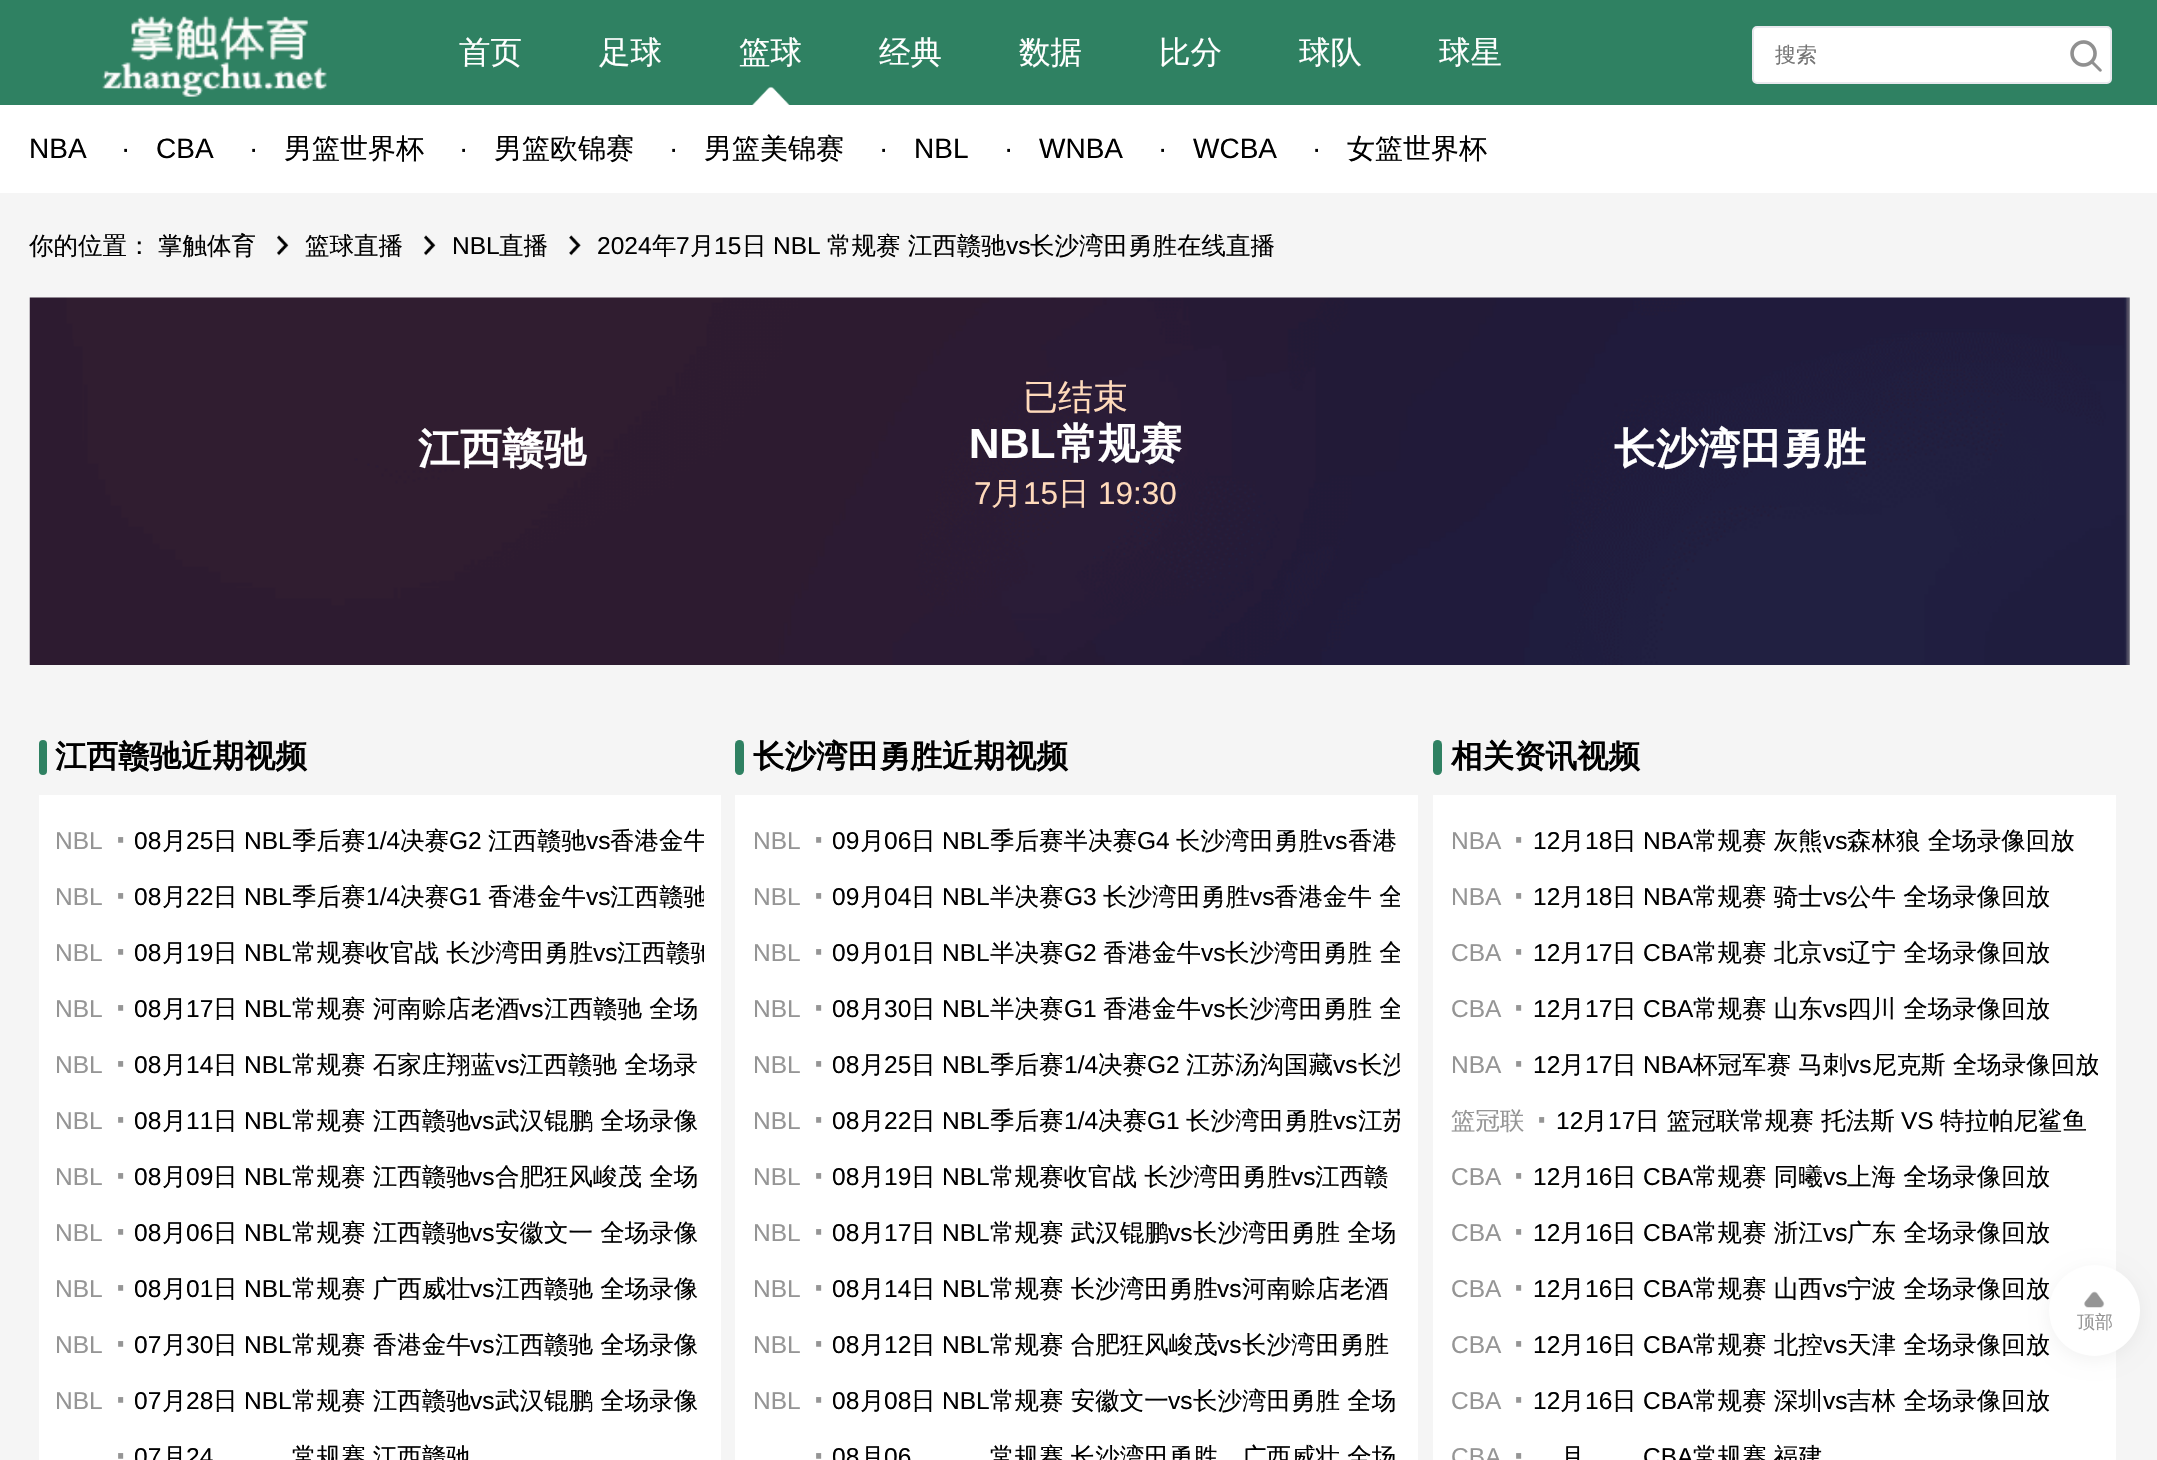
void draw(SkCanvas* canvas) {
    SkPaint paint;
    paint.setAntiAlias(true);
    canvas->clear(0xFFF5F5F5);
    paint.setColor(0xFF2F8162);
    canvas->drawRect(SkRect::MakeXYWH(0, 0, 2157, 105), paint);
    canvas->drawImageRect(SkImages::DeferredFromEncodedData(SkData::MakeFromFileName("img1.png")), SkRect::MakeXYWH(102, 15, 225, 82), SkSamplingOptions());
    SkFont font1(fontMgr->matchFamilyStyle("WenQuanYi Zen Hei", SkFontStyle(500, SkFontStyle::kNormal_Width, SkFontStyle::kUpright_Slant)), 31.5f);
    font1.setSubpixel(true);
    paint.setColor(0xFFFFFFFF);
    canvas->drawString("首页", 459, 63, font1, paint);
    canvas->drawString("足球", 599, 63, font1, paint);
    canvas->drawImageRect(SkImages::DeferredFromEncodedData(SkData::MakeFromFileName("img2.png")), SkRect::MakeXYWH(752, 86, 38, 19), SkSamplingOptions());
    canvas->drawString("篮球", 739, 63, font1, paint);
    canvas->drawString("经典", 879, 63, font1, paint);
    canvas->drawString("数据", 1019, 63, font1, paint);
    canvas->drawString("比分", 1159, 63, font1, paint);
    canvas->drawString("球队", 1299, 63, font1, paint);
    canvas->drawString("球星", 1439, 63, font1, paint);
    canvas->drawRoundRect(SkRect::MakeXYWH(1753, 27, 358, 56), 4, 4, paint);
    paint.setStyle(SkPaint::kStroke_Style);
    paint.setStrokeWidth(2);
    paint.setColor(0xFFE9E9EE);
    canvas->drawRoundRect(SkRect::MakeXYWH(1753, 27, 358, 56), 4, 4, paint);
    SkFont font2(fontMgr->matchFamilyStyle("WenQuanYi Zen Hei", SkFontStyle(500, SkFontStyle::kNormal_Width, SkFontStyle::kUpright_Slant)), 21);
    font2.setSubpixel(true);
    paint.setStyle(SkPaint::kFill_Style);
    paint.setColor(0xFF757575);
    canvas->drawString("搜索", 1775, 62, font2, paint);
    canvas->drawImageRect(SkImages::DeferredFromEncodedData(SkData::MakeFromFileName("img3.png")), SkRect::MakeXYWH(2070, 40, 32, 32), SkSamplingOptions());
    paint.setColor(0xFFFFFFFF);
    canvas->drawRect(SkRect::MakeXYWH(0, 105, 2157, 88), paint);
    SkFont font3(fontMgr->matchFamilyStyle("Liberation Sans", SkFontStyle::Normal()), 28);
    font3.setSubpixel(true);
    paint.setColor(0xFF000000);
    canvas->drawString("NBA", 29, 158, font3, paint);
    canvas->drawString("·", 121, 158, font3, paint);
    canvas->drawString("CBA", 156, 158, font3, paint);
    canvas->drawString("·", 249, 158, font3, paint);
    SkFont font4(fontMgr->matchFamilyStyle("WenQuanYi Zen Hei", SkFontStyle(500, SkFontStyle::kNormal_Width, SkFontStyle::kUpright_Slant)), 28);
    font4.setSubpixel(true);
    canvas->drawString("男篮世界杯", 284, 158, font4, paint);
    canvas->drawString("·", 459, 158, font3, paint);
    canvas->drawString("男篮欧锦赛", 494, 158, font4, paint);
    canvas->drawString("·", 669, 158, font3, paint);
    canvas->drawString("男篮美锦赛", 704, 158, font4, paint);
    canvas->drawString("·", 879, 158, font3, paint);
    canvas->drawString("NBL", 914, 158, font3, paint);
    canvas->drawString("·", 1004, 158, font3, paint);
    canvas->drawString("WNBA", 1039, 158, font3, paint);
    canvas->drawString("·", 1158, 158, font3, paint);
    canvas->drawString("WCBA", 1193, 158, font3, paint);
    canvas->drawString("·", 1312, 158, font3, paint);
    canvas->drawString("女篮世界杯", 1347, 158, font4, paint);
    SkFont font5(fontMgr->matchFamilyStyle("WenQuanYi Zen Hei", SkFontStyle(500, SkFontStyle::kNormal_Width, SkFontStyle::kUpright_Slant)), 24.5f);
    font5.setSubpixel(true);
    canvas->drawString("你的位置：", 29, 254, font5, paint);
    canvas->drawString("掌触体育", 158, 254, font5, paint);
    canvas->drawImageRect(SkImages::DeferredFromEncodedData(SkData::MakeFromFileName("img4.png")), SkRect::MakeXYWH(277, 235, 12, 21), SkSamplingOptions());
    canvas->drawString("篮球直播", 305, 254, font5, paint);
    canvas->drawImageRect(SkImages::DeferredFromEncodedData(SkData::MakeFromFileName("img4.png")), SkRect::MakeXYWH(424, 235, 12, 21), SkSamplingOptions());
    SkFont font6(fontMgr->matchFamilyStyle("Liberation Sans", SkFontStyle::Normal()), 24.5f);
    font6.setSubpixel(true);
    canvas->drawString("NBL", 452, 254, font6, paint);
    canvas->drawString("直播", 499, 254, font5, paint);
    canvas->drawImageRect(SkImages::DeferredFromEncodedData(SkData::MakeFromFileName("img5.png")), SkRect::MakeXYWH(569, 235, 12, 21), SkSamplingOptions());
    canvas->drawString("2024", 597, 254, font6, paint);
    canvas->drawString("年", 652, 254, font5, paint);
    canvas->drawString("7", 676, 254, font6, paint);
    canvas->drawString("月", 690, 254, font5, paint);
    canvas->drawString("15", 714, 254, font6, paint);
    canvas->drawString("日", 742, 254, font5, paint);
    canvas->drawString("NBL", 773, 254, font6, paint);
    canvas->drawString("常规赛 江西赣驰", 827, 254, font5, paint);
    canvas->drawString("vs", 1006, 254, font6, paint);
    canvas->drawString("长沙湾田勇胜在线直播", 1030, 254, font5, paint);
    canvas->drawImageRect(SkImages::DeferredFromEncodedData(SkData::MakeFromFileName("img6.png")), SkRect::MakeXYWH(29, 297, 2101, 368), SkSamplingOptions());
    SkFont font7(fontMgr->matchFamilyStyle("WenQuanYi Zen Hei", SkFontStyle::Bold()), 42);
    font7.setSubpixel(true);
    paint.setColor(0xFFFFFFFF);
    canvas->drawString("江西赣驰", 418, 463, font7, paint);
    SkFont font8(fontMgr->matchFamilyStyle("WenQuanYi Zen Hei", SkFontStyle(500, SkFontStyle::kNormal_Width, SkFontStyle::kUpright_Slant)), 35);
    font8.setSubpixel(true);
    paint.setColor(0xFFFFDABB);
    canvas->drawString("已结束", 1023, 409, font8, paint);
    SkFont font9(fontMgr->matchFamilyStyle("Liberation Sans", SkFontStyle::Bold()), 42);
    font9.setSubpixel(true);
    paint.setColor(0xFFFFFFFF);
    canvas->drawString("NBL", 969, 458, font9, paint);
    canvas->drawString("常规赛", 1056, 458, font7, paint);
    SkFont font10(fontMgr->matchFamilyStyle("Liberation Sans", SkFontStyle::Normal()), 31.5f);
    font10.setSubpixel(true);
    paint.setColor(0xFFFFDABB);
    canvas->drawString("7", 974, 504, font10, paint);
    canvas->drawString("月", 991, 504, font1, paint);
    canvas->drawString("15", 1023, 504, font10, paint);
    canvas->drawString("日", 1058, 504, font1, paint);
    canvas->drawString("19:30", 1098, 504, font10, paint);
    paint.setColor(0xFFFFFFFF);
    canvas->drawString("长沙湾田勇胜", 1614, 463, font7, paint);
    paint.setColor(0xFF2F8162);
    canvas->drawRoundRect(SkRect::MakeXYWH(39, 740, 8, 35), 4, 4, paint);
    SkFont font11(fontMgr->matchFamilyStyle("WenQuanYi Zen Hei", SkFontStyle::Bold()), 31.5f);
    font11.setSubpixel(true);
    paint.setColor(0xFF000000);
    canvas->drawString("江西赣驰近期视频", 55, 767, font11, paint);
    paint.setColor(0xFFFFFFFF);
    canvas->drawRect(SkRect::MakeXYWH(39, 795, 682, 665), paint);
    paint.setColor(0xFF959595);
    canvas->drawString("NBL", 55, 849, font6, paint);
    SkFont font12(fontMgr->matchFamilyStyle("Liberation Sans", SkFontStyle::Normal()), 52);
    font12.setSubpixel(true);
    canvas->drawString("·", 112, 854, font12, paint);
    paint.setColor(0xFF000000);
    canvas->drawString("08", 134, 849, font6, paint);
    canvas->drawString("月", 162, 849, font5, paint);
    canvas->drawString("25", 186, 849, font6, paint);
    canvas->drawString("日", 213, 849, font5, paint);
    canvas->drawString("NBL", 244, 849, font6, paint);
    canvas->drawString("季后赛", 292, 849, font5, paint);
    canvas->drawString("1/4", 366, 849, font6, paint);
    canvas->drawString("决赛", 400, 849, font5, paint);
    canvas->drawString("G2", 449, 849, font6, paint);
    canvas->drawString("江西赣驰", 488, 849, font5, paint);
    canvas->drawString("vs", 586, 849, font6, paint);
    canvas->save();
    canvas->clipRect(SkRect::MakeXYWH(56, 812, 648, 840));
    canvas->drawString("香港金牛", 610, 849, font5, paint);
    canvas->restore();
    paint.setColor(0xFF959595);
    canvas->drawString("NBL", 55, 905, font6, paint);
    canvas->drawString("·", 112, 910, font12, paint);
    paint.setColor(0xFF000000);
    canvas->drawString("08", 134, 905, font6, paint);
    canvas->drawString("月", 162, 905, font5, paint);
    canvas->drawString("22", 186, 905, font6, paint);
    canvas->drawString("日", 213, 905, font5, paint);
    canvas->drawString("NBL", 244, 905, font6, paint);
    canvas->drawString("季后赛", 292, 905, font5, paint);
    canvas->drawString("1/4", 366, 905, font6, paint);
    canvas->drawString("决赛", 400, 905, font5, paint);
    canvas->drawString("G1", 449, 905, font6, paint);
    canvas->drawString("香港金牛", 488, 905, font5, paint);
    canvas->drawString("vs", 586, 905, font6, paint);
    canvas->save();
    canvas->clipRect(SkRect::MakeXYWH(56, 812, 648, 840));
    canvas->drawString("江西赣驰", 610, 905, font5, paint);
    canvas->restore();
    paint.setColor(0xFF959595);
    canvas->drawString("NBL", 55, 961, font6, paint);
    canvas->drawString("·", 112, 966, font12, paint);
    paint.setColor(0xFF000000);
    canvas->drawString("08", 134, 961, font6, paint);
    canvas->drawString("月", 162, 961, font5, paint);
    canvas->drawString("19", 186, 961, font6, paint);
    canvas->drawString("日", 213, 961, font5, paint);
    canvas->drawString("NBL", 244, 961, font6, paint);
    canvas->drawString("常规赛收官战 长沙湾田勇胜", 292, 961, font5, paint);
    canvas->drawString("vs", 593, 961, font6, paint);
    canvas->save();
    canvas->clipRect(SkRect::MakeXYWH(56, 812, 648, 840));
    canvas->drawString("江西赣驰", 617, 961, font5, paint);
    canvas->restore();
    paint.setColor(0xFF959595);
    canvas->drawString("NBL", 55, 1017, font6, paint);
    canvas->drawString("·", 112, 1022, font12, paint);
    paint.setColor(0xFF000000);
    canvas->drawString("08", 134, 1017, font6, paint);
    canvas->drawString("月", 162, 1017, font5, paint);
    canvas->drawString("17", 186, 1017, font6, paint);
    canvas->drawString("日", 213, 1017, font5, paint);
    canvas->drawString("NBL", 244, 1017, font6, paint);
    canvas->drawString("常规赛 河南赊店老酒", 292, 1017, font5, paint);
    canvas->drawString("vs", 519, 1017, font6, paint);
    canvas->drawString("江西赣驰 全场", 544, 1017, font5, paint);
    paint.setColor(0xFF959595);
    canvas->drawString("NBL", 55, 1073, font6, paint);
    canvas->drawString("·", 112, 1078, font12, paint);
    paint.setColor(0xFF000000);
    canvas->drawString("08", 134, 1073, font6, paint);
    canvas->drawString("月", 162, 1073, font5, paint);
    canvas->drawString("14", 186, 1073, font6, paint);
    canvas->drawString("日", 213, 1073, font5, paint);
    canvas->drawString("NBL", 244, 1073, font6, paint);
    canvas->drawString("常规赛 石家庄翔蓝", 292, 1073, font5, paint);
    canvas->drawString("vs", 495, 1073, font6, paint);
    canvas->drawString("江西赣驰 全场录", 519, 1073, font5, paint);
    paint.setColor(0xFF959595);
    canvas->drawString("NBL", 55, 1129, font6, paint);
    canvas->drawString("·", 112, 1134, font12, paint);
    paint.setColor(0xFF000000);
    canvas->drawString("08", 134, 1129, font6, paint);
    canvas->drawString("月", 162, 1129, font5, paint);
    canvas->drawString("11", 186, 1129, font6, paint);
    canvas->drawString("日", 213, 1129, font5, paint);
    canvas->drawString("NBL", 244, 1129, font6, paint);
    canvas->drawString("常规赛 江西赣驰", 292, 1129, font5, paint);
    canvas->drawString("vs", 470, 1129, font6, paint);
    canvas->drawString("武汉锟鹏 全场录像", 495, 1129, font5, paint);
    paint.setColor(0xFF959595);
    canvas->drawString("NBL", 55, 1185, font6, paint);
    canvas->drawString("·", 112, 1190, font12, paint);
    paint.setColor(0xFF000000);
    canvas->drawString("08", 134, 1185, font6, paint);
    canvas->drawString("月", 162, 1185, font5, paint);
    canvas->drawString("09", 186, 1185, font6, paint);
    canvas->drawString("日", 213, 1185, font5, paint);
    canvas->drawString("NBL", 244, 1185, font6, paint);
    canvas->drawString("常规赛 江西赣驰", 292, 1185, font5, paint);
    canvas->drawString("vs", 470, 1185, font6, paint);
    canvas->drawString("合肥狂风峻茂 全场", 495, 1185, font5, paint);
    paint.setColor(0xFF959595);
    canvas->drawString("NBL", 55, 1241, font6, paint);
    canvas->drawString("·", 112, 1246, font12, paint);
    paint.setColor(0xFF000000);
    canvas->drawString("08", 134, 1241, font6, paint);
    canvas->drawString("月", 162, 1241, font5, paint);
    canvas->drawString("06", 186, 1241, font6, paint);
    canvas->drawString("日", 213, 1241, font5, paint);
    canvas->drawString("NBL", 244, 1241, font6, paint);
    canvas->drawString("常规赛 江西赣驰", 292, 1241, font5, paint);
    canvas->drawString("vs", 470, 1241, font6, paint);
    canvas->drawString("安徽文一 全场录像", 495, 1241, font5, paint);
    paint.setColor(0xFF959595);
    canvas->drawString("NBL", 55, 1297, font6, paint);
    canvas->drawString("·", 112, 1302, font12, paint);
    paint.setColor(0xFF000000);
    canvas->drawString("08", 134, 1297, font6, paint);
    canvas->drawString("月", 162, 1297, font5, paint);
    canvas->drawString("01", 186, 1297, font6, paint);
    canvas->drawString("日", 213, 1297, font5, paint);
    canvas->drawString("NBL", 244, 1297, font6, paint);
    canvas->drawString("常规赛 广西威壮", 292, 1297, font5, paint);
    canvas->drawString("vs", 470, 1297, font6, paint);
    canvas->drawString("江西赣驰 全场录像", 495, 1297, font5, paint);
    paint.setColor(0xFF959595);
    canvas->drawString("NBL", 55, 1353, font6, paint);
    canvas->drawString("·", 112, 1358, font12, paint);
    paint.setColor(0xFF000000);
    canvas->drawString("07", 134, 1353, font6, paint);
    canvas->drawString("月", 162, 1353, font5, paint);
    canvas->drawString("30", 186, 1353, font6, paint);
    canvas->drawString("日", 213, 1353, font5, paint);
    canvas->drawString("NBL", 244, 1353, font6, paint);
    canvas->drawString("常规赛 香港金牛", 292, 1353, font5, paint);
    canvas->drawString("vs", 470, 1353, font6, paint);
    canvas->drawString("江西赣驰 全场录像", 495, 1353, font5, paint);
    paint.setColor(0xFF959595);
    canvas->drawString("NBL", 55, 1409, font6, paint);
    canvas->drawString("·", 112, 1414, font12, paint);
    paint.setColor(0xFF000000);
    canvas->drawString("07", 134, 1409, font6, paint);
    canvas->drawString("月", 162, 1409, font5, paint);
    canvas->drawString("28", 186, 1409, font6, paint);
    canvas->drawString("日", 213, 1409, font5, paint);
    canvas->drawString("NBL", 244, 1409, font6, paint);
    canvas->drawString("常规赛 江西赣驰", 292, 1409, font5, paint);
    canvas->drawString("vs", 470, 1409, font6, paint);
    canvas->drawString("武汉锟鹏 全场录像", 495, 1409, font5, paint);
    paint.setColor(0xFF959595);
    canvas->drawString("·", 112, 1470, font12, paint);
    paint.setColor(0xFF000000);
    canvas->drawString("07", 134, 1465, font6, paint);
    canvas->drawString("月", 162, 1465, font5, paint);
    canvas->drawString("24", 186, 1465, font6, paint);
    canvas->drawString("常规赛 江西赣驰", 292, 1465, font5, paint);
    paint.setColor(0xFF2F8162);
    canvas->drawRoundRect(SkRect::MakeXYWH(735, 740, 9, 35), 4.5f, 4.5f, paint);
    paint.setColor(0xFF000000);
    canvas->drawString("长沙湾田勇胜近期视频", 753, 767, font11, paint);
    paint.setColor(0xFFFFFFFF);
    canvas->drawRect(SkRect::MakeXYWH(735, 795, 683, 665), paint);
    paint.setColor(0xFF959595);
    canvas->drawString("NBL", 753, 849, font6, paint);
    canvas->drawString("·", 810, 854, font12, paint);
    paint.setColor(0xFF000000);
    canvas->drawString("09", 832, 849, font6, paint);
    canvas->drawString("月", 860, 849, font5, paint);
    canvas->drawString("06", 884, 849, font6, paint);
    canvas->drawString("日", 911, 849, font5, paint);
    canvas->drawString("NBL", 942, 849, font6, paint);
    canvas->drawString("季后赛半决赛", 990, 849, font5, paint);
    canvas->drawString("G4", 1137, 849, font6, paint);
    canvas->drawString("长沙湾田勇胜", 1176, 849, font5, paint);
    canvas->drawString("vs", 1323, 849, font6, paint);
    canvas->drawString("香港", 1348, 849, font5, paint);
    paint.setColor(0xFF959595);
    canvas->drawString("NBL", 753, 905, font6, paint);
    canvas->drawString("·", 810, 910, font12, paint);
    paint.setColor(0xFF000000);
    canvas->drawString("09", 832, 905, font6, paint);
    canvas->drawString("月", 860, 905, font5, paint);
    canvas->drawString("04", 884, 905, font6, paint);
    canvas->drawString("日", 911, 905, font5, paint);
    canvas->drawString("NBL", 942, 905, font6, paint);
    canvas->drawString("半决赛", 990, 905, font5, paint);
    canvas->drawString("G3", 1064, 905, font6, paint);
    canvas->drawString("长沙湾田勇胜", 1103, 905, font5, paint);
    canvas->drawString("vs", 1250, 905, font6, paint);
    canvas->save();
    canvas->clipRect(SkRect::MakeXYWH(753, 812, 647, 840));
    canvas->drawString("香港金牛 全", 1274, 905, font5, paint);
    canvas->restore();
    paint.setColor(0xFF959595);
    canvas->drawString("NBL", 753, 961, font6, paint);
    canvas->drawString("·", 810, 966, font12, paint);
    paint.setColor(0xFF000000);
    canvas->drawString("09", 832, 961, font6, paint);
    canvas->drawString("月", 860, 961, font5, paint);
    canvas->drawString("01", 884, 961, font6, paint);
    canvas->drawString("日", 911, 961, font5, paint);
    canvas->drawString("NBL", 942, 961, font6, paint);
    canvas->drawString("半决赛", 990, 961, font5, paint);
    canvas->drawString("G2", 1064, 961, font6, paint);
    canvas->drawString("香港金牛", 1103, 961, font5, paint);
    canvas->drawString("vs", 1201, 961, font6, paint);
    canvas->save();
    canvas->clipRect(SkRect::MakeXYWH(753, 812, 647, 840));
    canvas->drawString("长沙湾田勇胜 全", 1225, 961, font5, paint);
    canvas->restore();
    paint.setColor(0xFF959595);
    canvas->drawString("NBL", 753, 1017, font6, paint);
    canvas->drawString("·", 810, 1022, font12, paint);
    paint.setColor(0xFF000000);
    canvas->drawString("08", 832, 1017, font6, paint);
    canvas->drawString("月", 860, 1017, font5, paint);
    canvas->drawString("30", 884, 1017, font6, paint);
    canvas->drawString("日", 911, 1017, font5, paint);
    canvas->drawString("NBL", 942, 1017, font6, paint);
    canvas->drawString("半决赛", 990, 1017, font5, paint);
    canvas->drawString("G1", 1064, 1017, font6, paint);
    canvas->drawString("香港金牛", 1103, 1017, font5, paint);
    canvas->drawString("vs", 1201, 1017, font6, paint);
    canvas->save();
    canvas->clipRect(SkRect::MakeXYWH(753, 812, 647, 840));
    canvas->drawString("长沙湾田勇胜 全", 1225, 1017, font5, paint);
    canvas->restore();
    paint.setColor(0xFF959595);
    canvas->drawString("NBL", 753, 1073, font6, paint);
    canvas->drawString("·", 810, 1078, font12, paint);
    paint.setColor(0xFF000000);
    canvas->drawString("08", 832, 1073, font6, paint);
    canvas->drawString("月", 860, 1073, font5, paint);
    canvas->drawString("25", 884, 1073, font6, paint);
    canvas->drawString("日", 911, 1073, font5, paint);
    canvas->drawString("NBL", 942, 1073, font6, paint);
    canvas->drawString("季后赛", 990, 1073, font5, paint);
    canvas->drawString("1/4", 1064, 1073, font6, paint);
    canvas->drawString("决赛", 1098, 1073, font5, paint);
    canvas->drawString("G2", 1147, 1073, font6, paint);
    canvas->drawString("江苏汤沟国藏", 1186, 1073, font5, paint);
    canvas->drawString("vs", 1333, 1073, font6, paint);
    canvas->save();
    canvas->clipRect(SkRect::MakeXYWH(753, 812, 647, 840));
    canvas->drawString("长沙", 1358, 1073, font5, paint);
    canvas->restore();
    paint.setColor(0xFF959595);
    canvas->drawString("NBL", 753, 1129, font6, paint);
    canvas->drawString("·", 810, 1134, font12, paint);
    paint.setColor(0xFF000000);
    canvas->drawString("08", 832, 1129, font6, paint);
    canvas->drawString("月", 860, 1129, font5, paint);
    canvas->drawString("22", 884, 1129, font6, paint);
    canvas->drawString("日", 911, 1129, font5, paint);
    canvas->drawString("NBL", 942, 1129, font6, paint);
    canvas->drawString("季后赛", 990, 1129, font5, paint);
    canvas->drawString("1/4", 1064, 1129, font6, paint);
    canvas->drawString("决赛", 1098, 1129, font5, paint);
    canvas->drawString("G1", 1147, 1129, font6, paint);
    canvas->drawString("长沙湾田勇胜", 1186, 1129, font5, paint);
    canvas->drawString("vs", 1333, 1129, font6, paint);
    canvas->save();
    canvas->clipRect(SkRect::MakeXYWH(753, 812, 647, 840));
    canvas->drawString("江苏", 1358, 1129, font5, paint);
    canvas->restore();
    paint.setColor(0xFF959595);
    canvas->drawString("NBL", 753, 1185, font6, paint);
    canvas->drawString("·", 810, 1190, font12, paint);
    paint.setColor(0xFF000000);
    canvas->drawString("08", 832, 1185, font6, paint);
    canvas->drawString("月", 860, 1185, font5, paint);
    canvas->drawString("19", 884, 1185, font6, paint);
    canvas->drawString("日", 911, 1185, font5, paint);
    canvas->drawString("NBL", 942, 1185, font6, paint);
    canvas->drawString("常规赛收官战 长沙湾田勇胜", 990, 1185, font5, paint);
    canvas->drawString("vs", 1291, 1185, font6, paint);
    canvas->drawString("江西赣", 1315, 1185, font5, paint);
    paint.setColor(0xFF959595);
    canvas->drawString("NBL", 753, 1241, font6, paint);
    canvas->drawString("·", 810, 1246, font12, paint);
    paint.setColor(0xFF000000);
    canvas->drawString("08", 832, 1241, font6, paint);
    canvas->drawString("月", 860, 1241, font5, paint);
    canvas->drawString("17", 884, 1241, font6, paint);
    canvas->drawString("日", 911, 1241, font5, paint);
    canvas->drawString("NBL", 942, 1241, font6, paint);
    canvas->drawString("常规赛 武汉锟鹏", 990, 1241, font5, paint);
    canvas->drawString("vs", 1168, 1241, font6, paint);
    canvas->drawString("长沙湾田勇胜 全场", 1193, 1241, font5, paint);
    paint.setColor(0xFF959595);
    canvas->drawString("NBL", 753, 1297, font6, paint);
    canvas->drawString("·", 810, 1302, font12, paint);
    paint.setColor(0xFF000000);
    canvas->drawString("08", 832, 1297, font6, paint);
    canvas->drawString("月", 860, 1297, font5, paint);
    canvas->drawString("14", 884, 1297, font6, paint);
    canvas->drawString("日", 911, 1297, font5, paint);
    canvas->drawString("NBL", 942, 1297, font6, paint);
    canvas->drawString("常规赛 长沙湾田勇胜", 990, 1297, font5, paint);
    canvas->drawString("vs", 1217, 1297, font6, paint);
    canvas->drawString("河南赊店老酒", 1242, 1297, font5, paint);
    paint.setColor(0xFF959595);
    canvas->drawString("NBL", 753, 1353, font6, paint);
    canvas->drawString("·", 810, 1358, font12, paint);
    paint.setColor(0xFF000000);
    canvas->drawString("08", 832, 1353, font6, paint);
    canvas->drawString("月", 860, 1353, font5, paint);
    canvas->drawString("12", 884, 1353, font6, paint);
    canvas->drawString("日", 911, 1353, font5, paint);
    canvas->drawString("NBL", 942, 1353, font6, paint);
    canvas->drawString("常规赛 合肥狂风峻茂", 990, 1353, font5, paint);
    canvas->drawString("vs", 1217, 1353, font6, paint);
    canvas->drawString("长沙湾田勇胜", 1242, 1353, font5, paint);
    paint.setColor(0xFF959595);
    canvas->drawString("NBL", 753, 1409, font6, paint);
    canvas->drawString("·", 810, 1414, font12, paint);
    paint.setColor(0xFF000000);
    canvas->drawString("08", 832, 1409, font6, paint);
    canvas->drawString("月", 860, 1409, font5, paint);
    canvas->drawString("08", 884, 1409, font6, paint);
    canvas->drawString("日", 911, 1409, font5, paint);
    canvas->drawString("NBL", 942, 1409, font6, paint);
    canvas->drawString("常规赛 安徽文一", 990, 1409, font5, paint);
    canvas->drawString("vs", 1168, 1409, font6, paint);
    canvas->drawString("长沙湾田勇胜 全场", 1193, 1409, font5, paint);
    paint.setColor(0xFF959595);
    canvas->drawString("·", 810, 1470, font12, paint);
    paint.setColor(0xFF000000);
    canvas->drawString("08", 832, 1465, font6, paint);
    canvas->drawString("月", 860, 1465, font5, paint);
    canvas->drawString("06", 884, 1465, font6, paint);
    canvas->drawString("常规赛 长沙湾田勇胜", 990, 1465, font5, paint);
    canvas->drawString("广西威壮 全场", 1242, 1465, font5, paint);
    paint.setColor(0xFF2F8162);
    canvas->drawRoundRect(SkRect::MakeXYWH(1433, 740, 9, 35), 4.5f, 4.5f, paint);
    paint.setColor(0xFF000000);
    canvas->drawString("相关资讯视频", 1451, 767, font11, paint);
    paint.setColor(0xFFFFFFFF);
    canvas->drawRect(SkRect::MakeXYWH(1433, 795, 683, 665), paint);
    paint.setColor(0xFF959595);
    canvas->drawString("NBA", 1451, 849, font6, paint);
    canvas->drawString("·", 1510, 854, font12, paint);
    paint.setColor(0xFF000000);
    canvas->drawString("12", 1533, 849, font6, paint);
    canvas->drawString("月", 1560, 849, font5, paint);
    canvas->drawString("18", 1585, 849, font6, paint);
    canvas->drawString("日", 1612, 849, font5, paint);
    canvas->drawString("NBA", 1643, 849, font6, paint);
    canvas->drawString("常规赛 灰熊", 1693, 849, font5, paint);
    canvas->drawString("vs", 1823, 849, font6, paint);
    canvas->drawString("森林狼 全场录像回放", 1847, 849, font5, paint);
    paint.setColor(0xFF959595);
    canvas->drawString("NBA", 1451, 905, font6, paint);
    canvas->drawString("·", 1510, 910, font12, paint);
    paint.setColor(0xFF000000);
    canvas->drawString("12", 1533, 905, font6, paint);
    canvas->drawString("月", 1560, 905, font5, paint);
    canvas->drawString("18", 1585, 905, font6, paint);
    canvas->drawString("日", 1612, 905, font5, paint);
    canvas->drawString("NBA", 1643, 905, font6, paint);
    canvas->drawString("常规赛 骑士", 1693, 905, font5, paint);
    canvas->drawString("vs", 1823, 905, font6, paint);
    canvas->drawString("公牛 全场录像回放", 1847, 905, font5, paint);
    paint.setColor(0xFF959595);
    canvas->drawString("CBA", 1451, 961, font6, paint);
    canvas->drawString("·", 1510, 966, font12, paint);
    paint.setColor(0xFF000000);
    canvas->drawString("12", 1533, 961, font6, paint);
    canvas->drawString("月", 1560, 961, font5, paint);
    canvas->drawString("17", 1585, 961, font6, paint);
    canvas->drawString("日", 1612, 961, font5, paint);
    canvas->drawString("CBA", 1643, 961, font6, paint);
    canvas->drawString("常规赛 北京", 1693, 961, font5, paint);
    canvas->drawString("vs", 1823, 961, font6, paint);
    canvas->drawString("辽宁 全场录像回放", 1847, 961, font5, paint);
    paint.setColor(0xFF959595);
    canvas->drawString("CBA", 1451, 1017, font6, paint);
    canvas->drawString("·", 1510, 1022, font12, paint);
    paint.setColor(0xFF000000);
    canvas->drawString("12", 1533, 1017, font6, paint);
    canvas->drawString("月", 1560, 1017, font5, paint);
    canvas->drawString("17", 1585, 1017, font6, paint);
    canvas->drawString("日", 1612, 1017, font5, paint);
    canvas->drawString("CBA", 1643, 1017, font6, paint);
    canvas->drawString("常规赛 山东", 1693, 1017, font5, paint);
    canvas->drawString("vs", 1823, 1017, font6, paint);
    canvas->drawString("四川 全场录像回放", 1847, 1017, font5, paint);
    paint.setColor(0xFF959595);
    canvas->drawString("NBA", 1451, 1073, font6, paint);
    canvas->drawString("·", 1510, 1078, font12, paint);
    paint.setColor(0xFF000000);
    canvas->drawString("12", 1533, 1073, font6, paint);
    canvas->drawString("月", 1560, 1073, font5, paint);
    canvas->drawString("17", 1585, 1073, font6, paint);
    canvas->drawString("日", 1612, 1073, font5, paint);
    canvas->drawString("NBA", 1643, 1073, font6, paint);
    canvas->drawString("杯冠军赛 马刺", 1693, 1073, font5, paint);
    canvas->drawString("vs", 1847, 1073, font6, paint);
    canvas->save();
    canvas->clipRect(SkRect::MakeXYWH(1451, 812, 647, 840));
    canvas->drawString("尼克斯 全场录像回放", 1872, 1073, font5, paint);
    canvas->restore();
    paint.setColor(0xFF959595);
    canvas->drawString("篮冠联", 1451, 1129, font5, paint);
    canvas->drawString("·", 1533, 1134, font12, paint);
    paint.setColor(0xFF000000);
    canvas->drawString("12", 1556, 1129, font6, paint);
    canvas->drawString("月", 1583, 1129, font5, paint);
    canvas->drawString("17", 1608, 1129, font6, paint);
    canvas->drawString("日 篮冠联常规赛 托法斯", 1635, 1129, font5, paint);
    canvas->drawString("VS", 1901, 1129, font6, paint);
    canvas->drawString("特拉帕尼鲨鱼", 1940, 1129, font5, paint);
    paint.setColor(0xFF959595);
    canvas->drawString("CBA", 1451, 1185, font6, paint);
    canvas->drawString("·", 1510, 1190, font12, paint);
    paint.setColor(0xFF000000);
    canvas->drawString("12", 1533, 1185, font6, paint);
    canvas->drawString("月", 1560, 1185, font5, paint);
    canvas->drawString("16", 1585, 1185, font6, paint);
    canvas->drawString("日", 1612, 1185, font5, paint);
    canvas->drawString("CBA", 1643, 1185, font6, paint);
    canvas->drawString("常规赛 同曦", 1693, 1185, font5, paint);
    canvas->drawString("vs", 1823, 1185, font6, paint);
    canvas->drawString("上海 全场录像回放", 1847, 1185, font5, paint);
    paint.setColor(0xFF959595);
    canvas->drawString("CBA", 1451, 1241, font6, paint);
    canvas->drawString("·", 1510, 1246, font12, paint);
    paint.setColor(0xFF000000);
    canvas->drawString("12", 1533, 1241, font6, paint);
    canvas->drawString("月", 1560, 1241, font5, paint);
    canvas->drawString("16", 1585, 1241, font6, paint);
    canvas->drawString("日", 1612, 1241, font5, paint);
    canvas->drawString("CBA", 1643, 1241, font6, paint);
    canvas->drawString("常规赛 浙江", 1693, 1241, font5, paint);
    canvas->drawString("vs", 1823, 1241, font6, paint);
    canvas->drawString("广东 全场录像回放", 1847, 1241, font5, paint);
    paint.setColor(0xFF959595);
    canvas->drawString("CBA", 1451, 1297, font6, paint);
    canvas->drawString("·", 1510, 1302, font12, paint);
    paint.setColor(0xFF000000);
    canvas->drawString("12", 1533, 1297, font6, paint);
    canvas->drawString("月", 1560, 1297, font5, paint);
    canvas->drawString("16", 1585, 1297, font6, paint);
    canvas->drawString("日", 1612, 1297, font5, paint);
    canvas->drawString("CBA", 1643, 1297, font6, paint);
    canvas->drawString("常规赛 山西", 1693, 1297, font5, paint);
    canvas->drawString("vs", 1823, 1297, font6, paint);
    canvas->drawString("宁波 全场录像回放", 1847, 1297, font5, paint);
    paint.setColor(0xFF959595);
    canvas->drawString("CBA", 1451, 1353, font6, paint);
    canvas->drawString("·", 1510, 1358, font12, paint);
    paint.setColor(0xFF000000);
    canvas->drawString("12", 1533, 1353, font6, paint);
    canvas->drawString("月", 1560, 1353, font5, paint);
    canvas->drawString("16", 1585, 1353, font6, paint);
    canvas->drawString("日", 1612, 1353, font5, paint);
    canvas->drawString("CBA", 1643, 1353, font6, paint);
    canvas->drawString("常规赛 北控", 1693, 1353, font5, paint);
    canvas->drawString("vs", 1823, 1353, font6, paint);
    canvas->drawString("天津 全场录像回放", 1847, 1353, font5, paint);
    paint.setColor(0xFF959595);
    canvas->drawString("CBA", 1451, 1409, font6, paint);
    canvas->drawString("·", 1510, 1414, font12, paint);
    paint.setColor(0xFF000000);
    canvas->drawString("12", 1533, 1409, font6, paint);
    canvas->drawString("月", 1560, 1409, font5, paint);
    canvas->drawString("16", 1585, 1409, font6, paint);
    canvas->drawString("日", 1612, 1409, font5, paint);
    canvas->drawString("CBA", 1643, 1409, font6, paint);
    canvas->drawString("常规赛 深圳", 1693, 1409, font5, paint);
    canvas->drawString("vs", 1823, 1409, font6, paint);
    canvas->drawString("吉林 全场录像回放", 1847, 1409, font5, paint);
    paint.setColor(0xFF959595);
    canvas->drawString("CBA", 1451, 1465, font6, paint);
    canvas->drawString("·", 1510, 1470, font12, paint);
    paint.setColor(0xFF000000);
    canvas->drawString("月", 1560, 1465, font5, paint);
    canvas->drawString("CBA", 1643, 1465, font6, paint);
    canvas->drawString("常规赛 福建", 1693, 1465, font5, paint);
    paint.setColor(0x0D000000);
    paint.setMaskFilter(SkMaskFilter::MakeBlur(kNormal_SkBlurStyle, 9));
    canvas->drawRoundRect(SkRect::MakeXYWH(2049, 1269, 91, 91), 45.5f, 45.5f, paint);
    paint.setMaskFilter(nullptr);
    paint.setColor(0xFFFFFFFF);
    canvas->drawCircle(2094.5f, 1310.5f, 45.5f, paint);
    canvas->drawImageRect(SkImages::DeferredFromEncodedData(SkData::MakeFromFileName("img7.png")), SkRect::MakeXYWH(2084, 1291, 21, 17), SkSamplingOptions());
    SkFont font13(fontMgr->matchFamilyStyle("WenQuanYi Zen Hei", SkFontStyle(500, SkFontStyle::kNormal_Width, SkFontStyle::kUpright_Slant)), 18);
    font13.setSubpixel(true);
    paint.setColor(0xFF959595);
    canvas->drawString("顶部", 2077, 1328, font13, paint);
}
